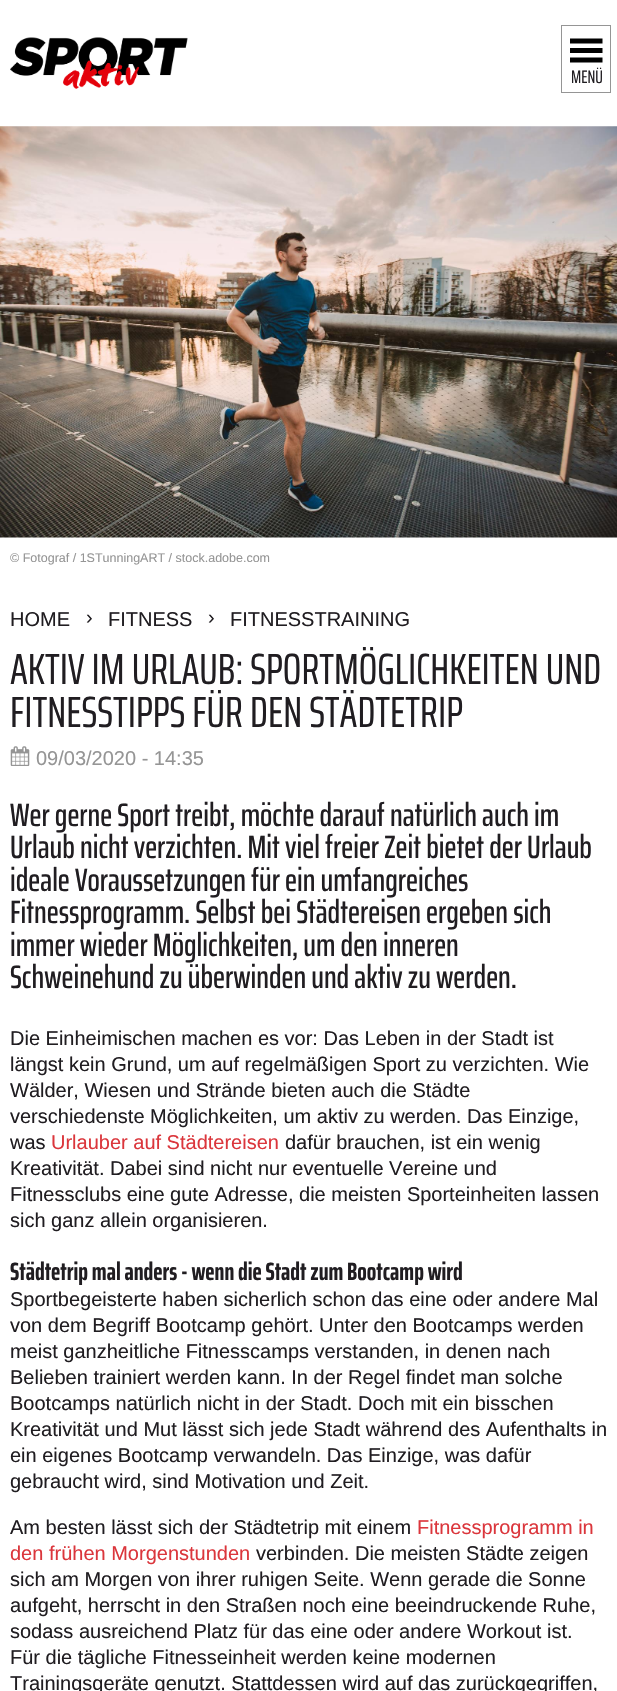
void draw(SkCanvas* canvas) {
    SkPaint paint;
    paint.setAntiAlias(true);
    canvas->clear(0xFFFFFFFF);
    canvas->drawImageRect(SkImages::DeferredFromEncodedData(SkData::MakeFromFileName("img1.png")), SkRect::MakeXYWH(10, 37, 178, 52), SkSamplingOptions());
    paint.setStyle(SkPaint::kStroke_Style);
    paint.setStrokeWidth(1);
    paint.setColor(0xFF959595);
    canvas->drawRect(SkRect::MakeXYWH(561.5f, 25.5f, 49, 67), paint);
    paint.setStyle(SkPaint::kFill_Style);
    paint.setColor(0xFF000000);
    canvas->drawPath(SkPathBuilder().moveTo(570, 53).lineTo(570, 48).lineTo(602.5f, 48).lineTo(602.5f, 53).close().moveTo(570, 62.5f).lineTo(570, 57.5f).lineTo(602.5f, 57.5f).lineTo(602.5f, 62.5f).close().moveTo(570, 43.5f).lineTo(570, 38.5f).lineTo(602.5f, 38.5f).lineTo(602.5f, 43.5f).close().detach(), paint);
    SkFont font1(fontMgr->matchFamilyStyle("Saira ExtraCondensed", SkFontStyle::Normal()), 18);
    font1.setSubpixel(true);
    paint.setColor(0xFF201D21);
    canvas->drawString("MENÜ", 571, 83, font1, paint);
    canvas->drawImageRect(SkImages::DeferredFromEncodedData(SkData::MakeFromFileName("img2.png")), SkRect::MakeXYWH(0, 126, 617, 412), SkSamplingOptions());
    SkFont font2(fontMgr->matchFamilyStyle("Liberation Sans", SkFontStyle::Normal()), 12.5f);
    font2.setSubpixel(true);
    paint.setColor(0xFF959595);
    canvas->drawString("© Fotograf / 1STunningART / stock.adobe.com", 10, 562, font2, paint);
    SkFont font3(fontMgr->matchFamilyStyle("Liberation Sans", SkFontStyle::Normal()), 20);
    font3.setSubpixel(true);
    paint.setColor(0xFF201D21);
    canvas->drawString("HOME", 10, 626, font3, paint);
    canvas->drawString("›", 86, 624, font3, paint);
    canvas->drawString("FITNESS", 108, 626, font3, paint);
    canvas->drawString("›", 208, 624, font3, paint);
    canvas->drawString("FITNESSTRAINING", 230, 626, font3, paint);
    SkFont font4(fontMgr->matchFamilyStyle("Saira ExtraCondensed", SkFontStyle::Normal()), 43.75f);
    font4.setSubpixel(true);
    canvas->drawString("AKTIV IM URLAUB: SPORTMÖGLICHKEITEN UND", 10, 684, font4, paint);
    canvas->drawString("FITNESSTIPPS FÜR DEN STÄDTETRIP", 10, 727, font4, paint);
    canvas->drawImageRect(SkImages::DeferredFromEncodedData(SkData::MakeFromFileName("img3.png")), SkRect::MakeXYWH(10, 746, 20, 20), SkSamplingOptions());
    paint.setColor(0xFF959595);
    canvas->drawString("09/03/2020 - 14:35", 36, 765, font3, paint);
    SkFont font5(fontMgr->matchFamilyStyle("Saira ExtraCondensed", SkFontStyle(500, SkFontStyle::kNormal_Width, SkFontStyle::kUpright_Slant)), 32.5f);
    font5.setSubpixel(true);
    paint.setColor(0xFF201D21);
    canvas->drawString("Wer gerne Sport treibt, möchte darauf natürlich auch im", 10, 826, font5, paint);
    canvas->drawString("Urlaub nicht verzichten. Mit viel freier Zeit bietet der Urlaub", 10, 858, font5, paint);
    canvas->drawString("ideale Voraussetzungen für ein umfangreiches", 10, 891, font5, paint);
    canvas->drawString("Fitnessprogramm. Selbst bei Städtereisen ergeben sich", 10, 923, font5, paint);
    canvas->drawString("immer wieder Möglichkeiten, um den inneren", 10, 956, font5, paint);
    canvas->drawString("Schweinehund zu überwinden und aktiv zu werden.", 10, 988, font5, paint);
    canvas->drawString("Die Einheimischen machen es vor: Das Leben in der Stadt ist", 10, 1045, font3, paint);
    canvas->drawString("längst kein Grund, um auf regelmäßigen Sport zu verzichten. Wie", 10, 1071, font3, paint);
    canvas->drawString("Wälder, Wiesen und Strände bieten auch die Städte", 10, 1097, font3, paint);
    canvas->drawString("verschiedenste Möglichkeiten, um aktiv zu werden. Das Einzige,", 10, 1123, font3, paint);
    canvas->drawString("was", 10, 1149, font3, paint);
    paint.setColor(0xFFDB363C);
    canvas->drawString("Urlauber auf Städtereisen", 51, 1149, font3, paint);
    paint.setColor(0xFF201D21);
    canvas->drawString("dafür brauchen, ist ein wenig", 285, 1149, font3, paint);
    canvas->drawString("Kreativität. Dabei sind nicht nur eventuelle Vereine und", 10, 1175, font3, paint);
    canvas->drawString("Fitnessclubs eine gute Adresse, die meisten Sporteinheiten lassen", 10, 1201, font3, paint);
    canvas->drawString("sich ganz allein organisieren.", 10, 1227, font3, paint);
    SkFont font6(fontMgr->matchFamilyStyle("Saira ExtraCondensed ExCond", SkFontStyle::Bold()), 25);
    font6.setSubpixel(true);
    canvas->drawString("Städtetrip mal anders - wenn die Stadt zum Bootcamp wird", 10, 1280, font6, paint);
    canvas->drawString("Sportbegeisterte haben sicherlich schon das eine oder andere Mal", 10, 1306, font3, paint);
    canvas->drawString("von dem Begriff Bootcamp gehört. Unter den Bootcamps werden", 10, 1332, font3, paint);
    canvas->drawString("meist ganzheitliche Fitnesscamps verstanden, in denen nach", 10, 1358, font3, paint);
    canvas->drawString("Belieben trainiert werden kann. In der Regel findet man solche", 10, 1384, font3, paint);
    canvas->drawString("Bootcamps natürlich nicht in der Stadt. Doch mit ein bisschen", 10, 1410, font3, paint);
    canvas->drawString("Kreativität und Mut lässt sich jede Stadt während des Aufenthalts in", 10, 1436, font3, paint);
    canvas->drawString("ein eigenes Bootcamp verwandeln. Das Einzige, was dafür", 10, 1462, font3, paint);
    canvas->drawString("gebraucht wird, sind Motivation und Zeit.", 10, 1488, font3, paint);
    canvas->drawString("Am besten lässt sich der Städtetrip mit einem", 10, 1534, font3, paint);
    paint.setColor(0xFFDB363C);
    canvas->drawString("Fitnessprogramm in", 417, 1534, font3, paint);
    canvas->drawString("den frühen Morgenstunden", 10, 1560, font3, paint);
    paint.setColor(0xFF201D21);
    canvas->drawString("verbinden. Die meisten Städte zeigen", 256, 1560, font3, paint);
    canvas->drawString("sich am Morgen von ihrer ruhigen Seite. Wenn gerade die Sonne", 10, 1586, font3, paint);
    canvas->drawString("aufgeht, herrscht in den Straßen noch eine beeindruckende Ruhe,", 10, 1612, font3, paint);
    canvas->drawString("sodass ausreichend Platz für das eine oder andere Workout ist.", 10, 1638, font3, paint);
    canvas->drawString("Für die tägliche Fitnesseinheit werden keine modernen", 10, 1664, font3, paint);
    canvas->drawString("Trainingsgeräte genutzt. Stattdessen wird auf das zurückgegriffen,", 10, 1690, font3, paint);
}
